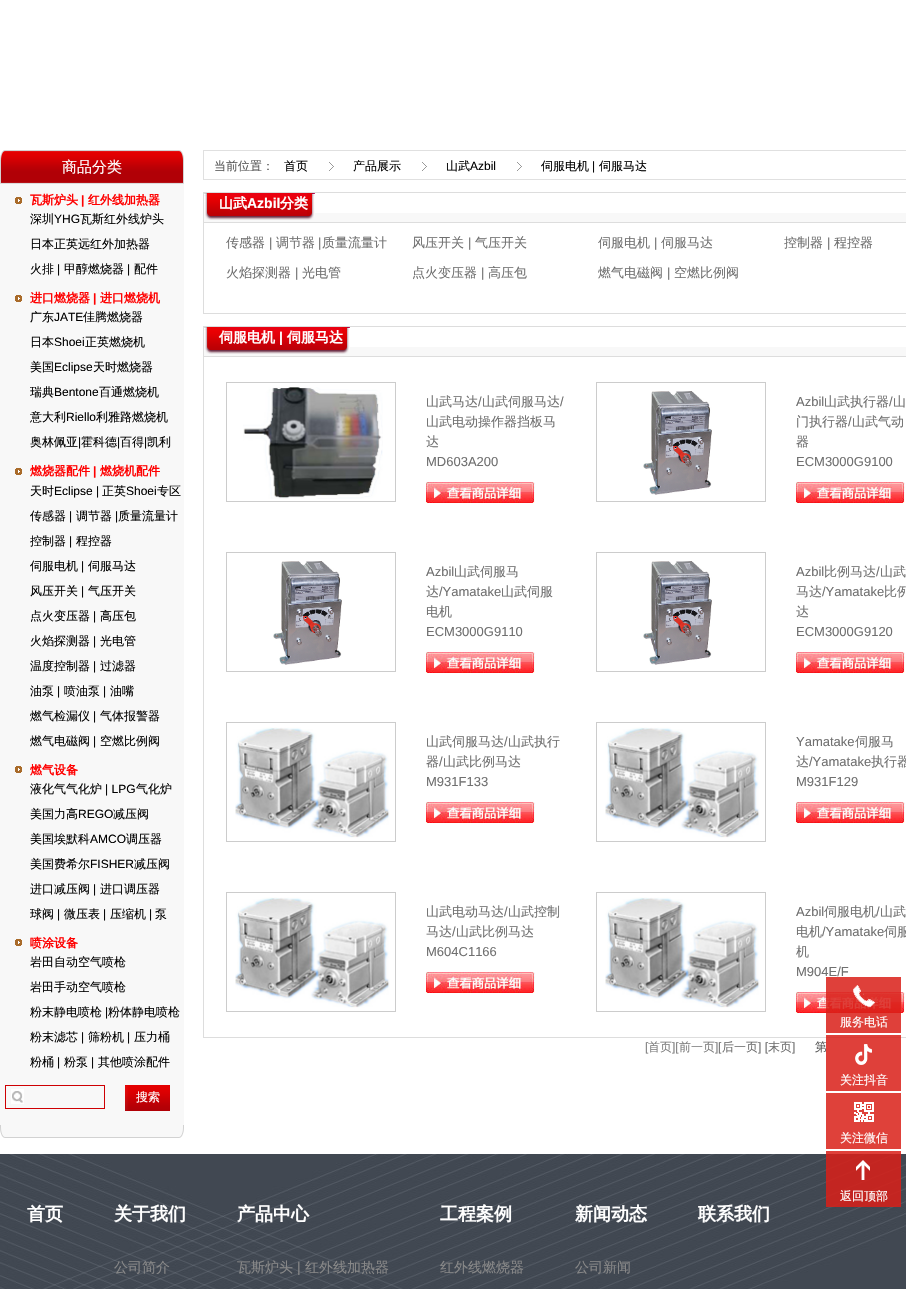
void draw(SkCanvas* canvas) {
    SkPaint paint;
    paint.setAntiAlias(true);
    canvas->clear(0xFFFFFFFF);
    paint.setColor(0xFFF8F8F8);
    canvas->drawRect(SkRect::MakeXYWH(0, 184, 184, 941), paint);
    canvas->drawImageRect(SkImages::DeferredFromEncodedData(SkData::MakeFromFileName("img1.png")), SkRect::MakeXYWH(0, 150, 184, 33), SkSamplingOptions());
    paint.setColor(0xFFDBDBDB);
    canvas->drawRect(SkRect::MakeXYWH(0, 183, 184, 1), paint);
    SkFont font1(fontMgr->matchFamilyStyle("WenQuanYi Zen Hei", SkFontStyle(500, SkFontStyle::kNormal_Width, SkFontStyle::kUpright_Slant)), 15);
    font1.setSubpixel(true);
    paint.setColor(0xFFFFFFFF);
    canvas->drawString("商品分类", 62, 172, font1, paint);
    canvas->drawImageRect(SkImages::DeferredFromEncodedData(SkData::MakeFromFileName("img2.png")), SkRect::MakeXYWH(15, 197, 7, 7), SkSamplingOptions());
    SkFont font2(fontMgr->matchFamilyStyle("WenQuanYi Zen Hei", SkFontStyle::Bold()), 12);
    font2.setSubpixel(true);
    paint.setColor(0xFFFF0000);
    canvas->drawString("瓦斯炉头", 30, 204, font2, paint);
    SkFont font3(fontMgr->matchFamilyStyle("Liberation Sans", SkFontStyle::Bold()), 12);
    font3.setSubpixel(true);
    canvas->drawString("|", 81, 204, font3, paint);
    canvas->drawString("红外线加热器", 88, 204, font2, paint);
    SkFont font4(fontMgr->matchFamilyStyle("WenQuanYi Zen Hei", SkFontStyle(500, SkFontStyle::kNormal_Width, SkFontStyle::kUpright_Slant)), 12);
    font4.setSubpixel(true);
    paint.setColor(0xFF000000);
    canvas->drawString("深圳", 30, 223, font4, paint);
    SkFont font5(fontMgr->matchFamilyStyle("Liberation Sans", SkFontStyle::Normal()), 12);
    font5.setSubpixel(true);
    canvas->drawString("YHG", 54, 223, font5, paint);
    canvas->drawString("瓦斯红外线炉头", 80, 223, font4, paint);
    canvas->drawString("日本正英远红外加热器", 30, 248, font4, paint);
    canvas->drawString("火排", 30, 273, font4, paint);
    canvas->drawString("|", 57, 273, font5, paint);
    canvas->drawString("甲醇燃烧器", 64, 273, font4, paint);
    canvas->drawString("|", 127, 273, font5, paint);
    canvas->drawString("配件", 134, 273, font4, paint);
    canvas->drawImageRect(SkImages::DeferredFromEncodedData(SkData::MakeFromFileName("img2.png")), SkRect::MakeXYWH(15, 295, 7, 7), SkSamplingOptions());
    paint.setColor(0xFFFF0000);
    canvas->drawString("进口燃烧器", 30, 302, font2, paint);
    canvas->drawString("|", 93, 302, font3, paint);
    canvas->drawString("进口燃烧机", 100, 302, font2, paint);
    paint.setColor(0xFF000000);
    canvas->drawString("广东", 30, 321, font4, paint);
    canvas->drawString("JATE", 54, 321, font5, paint);
    canvas->drawString("佳腾燃烧器", 83, 321, font4, paint);
    canvas->drawString("日本", 30, 346, font4, paint);
    canvas->drawString("Shoei", 54, 346, font5, paint);
    canvas->drawString("正英燃烧机", 85, 346, font4, paint);
    canvas->drawString("美国", 30, 371, font4, paint);
    canvas->drawString("Eclipse", 54, 371, font5, paint);
    canvas->drawString("天时燃烧器", 93, 371, font4, paint);
    canvas->drawString("瑞典", 30, 396, font4, paint);
    canvas->drawString("Bentone", 54, 396, font5, paint);
    canvas->drawString("百通燃烧机", 99, 396, font4, paint);
    canvas->drawString("意大利", 30, 421, font4, paint);
    canvas->drawString("Riello", 66, 421, font5, paint);
    canvas->drawString("利雅路燃烧机", 96, 421, font4, paint);
    canvas->drawString("奥林佩亚", 30, 446, font4, paint);
    canvas->drawString("|", 78, 446, font5, paint);
    canvas->drawString("霍科德", 81, 446, font4, paint);
    canvas->drawString("|", 117, 446, font5, paint);
    canvas->drawString("百得", 120, 446, font4, paint);
    canvas->drawString("|", 144, 446, font5, paint);
    canvas->drawString("凯利", 147, 446, font4, paint);
    canvas->drawImageRect(SkImages::DeferredFromEncodedData(SkData::MakeFromFileName("img2.png")), SkRect::MakeXYWH(15, 468, 7, 7), SkSamplingOptions());
    paint.setColor(0xFFFF0000);
    canvas->drawString("燃烧器配件", 30, 475, font2, paint);
    canvas->drawString("|", 93, 475, font3, paint);
    canvas->drawString("燃烧机配件", 100, 475, font2, paint);
    paint.setColor(0xFF000000);
    canvas->drawString("天时", 30, 495, font4, paint);
    canvas->drawString("Eclipse |", 54, 495, font5, paint);
    canvas->drawString("正英", 102, 495, font4, paint);
    canvas->drawString("Shoei", 126, 495, font5, paint);
    canvas->drawString("专区", 157, 495, font4, paint);
    canvas->drawString("传感器", 30, 520, font4, paint);
    canvas->drawString("|", 69, 520, font5, paint);
    canvas->drawString("调节器", 76, 520, font4, paint);
    canvas->drawString("|", 115, 520, font5, paint);
    canvas->drawString("质量流量计", 118, 520, font4, paint);
    canvas->drawString("控制器", 30, 545, font4, paint);
    canvas->drawString("|", 69, 545, font5, paint);
    canvas->drawString("程控器", 76, 545, font4, paint);
    canvas->drawString("伺服电机", 30, 570, font4, paint);
    canvas->drawString("|", 81, 570, font5, paint);
    canvas->drawString("伺服马达", 88, 570, font4, paint);
    canvas->drawString("风压开关", 30, 595, font4, paint);
    canvas->drawString("|", 81, 595, font5, paint);
    canvas->drawString("气压开关", 88, 595, font4, paint);
    canvas->drawString("点火变压器", 30, 620, font4, paint);
    canvas->drawString("|", 93, 620, font5, paint);
    canvas->drawString("高压包", 100, 620, font4, paint);
    canvas->drawString("火焰探测器", 30, 645, font4, paint);
    canvas->drawString("|", 93, 645, font5, paint);
    canvas->drawString("光电管", 100, 645, font4, paint);
    canvas->drawString("温度控制器", 30, 670, font4, paint);
    canvas->drawString("|", 93, 670, font5, paint);
    canvas->drawString("过滤器", 100, 670, font4, paint);
    canvas->drawString("油泵", 30, 695, font4, paint);
    canvas->drawString("|", 57, 695, font5, paint);
    canvas->drawString("喷油泵", 64, 695, font4, paint);
    canvas->drawString("|", 103, 695, font5, paint);
    canvas->drawString("油嘴", 110, 695, font4, paint);
    canvas->drawString("燃气检漏仪", 30, 720, font4, paint);
    canvas->drawString("|", 93, 720, font5, paint);
    canvas->drawString("气体报警器", 100, 720, font4, paint);
    canvas->drawString("燃气电磁阀", 30, 745, font4, paint);
    canvas->drawString("|", 93, 745, font5, paint);
    canvas->drawString("空燃比例阀", 100, 745, font4, paint);
    canvas->drawImageRect(SkImages::DeferredFromEncodedData(SkData::MakeFromFileName("img2.png")), SkRect::MakeXYWH(15, 766, 7, 7), SkSamplingOptions());
    paint.setColor(0xFFFF0000);
    canvas->drawString("燃气设备", 30, 774, font2, paint);
    paint.setColor(0xFF000000);
    canvas->drawString("液化气气化炉", 30, 793, font4, paint);
    canvas->drawString("| LPG", 105, 793, font5, paint);
    canvas->drawString("气化炉", 136, 793, font4, paint);
    canvas->drawString("美国力高", 30, 818, font4, paint);
    canvas->drawString("REGO", 78, 818, font5, paint);
    canvas->drawString("减压阀", 113, 818, font4, paint);
    canvas->drawString("美国埃默科", 30, 843, font4, paint);
    canvas->drawString("AMCO", 90, 843, font5, paint);
    canvas->drawString("调压器", 126, 843, font4, paint);
    canvas->drawString("美国费希尔", 30, 868, font4, paint);
    canvas->drawString("FISHER", 90, 868, font5, paint);
    canvas->drawString("减压阀", 134, 868, font4, paint);
    canvas->drawString("进口减压阀", 30, 893, font4, paint);
    canvas->drawString("|", 93, 893, font5, paint);
    canvas->drawString("进口调压器", 100, 893, font4, paint);
    canvas->drawString("球阀", 30, 918, font4, paint);
    canvas->drawString("|", 57, 918, font5, paint);
    canvas->drawString("微压表", 64, 918, font4, paint);
    canvas->drawString("|", 103, 918, font5, paint);
    canvas->drawString("压缩机", 110, 918, font4, paint);
    canvas->drawString("|", 149, 918, font5, paint);
    canvas->drawString("泵", 155, 918, font4, paint);
    canvas->drawImageRect(SkImages::DeferredFromEncodedData(SkData::MakeFromFileName("img2.png")), SkRect::MakeXYWH(15, 939, 7, 7), SkSamplingOptions());
    paint.setColor(0xFFFF0000);
    canvas->drawString("喷涂设备", 30, 947, font2, paint);
    paint.setColor(0xFF000000);
    canvas->drawString("岩田自动空气喷枪", 30, 966, font4, paint);
    canvas->drawString("岩田手动空气喷枪", 30, 991, font4, paint);
    canvas->drawString("粉末静电喷枪", 30, 1016, font4, paint);
    canvas->drawString("|", 105, 1016, font5, paint);
    canvas->drawString("粉体静电喷枪", 108, 1016, font4, paint);
    canvas->drawString("粉末滤芯", 30, 1041, font4, paint);
    canvas->drawString("|", 81, 1041, font5, paint);
    canvas->drawString("筛粉机", 88, 1041, font4, paint);
    canvas->drawString("|", 127, 1041, font5, paint);
    canvas->drawString("压力桶", 134, 1041, font4, paint);
    canvas->drawString("粉桶", 30, 1066, font4, paint);
    canvas->drawString("|", 57, 1066, font5, paint);
    canvas->drawString("粉泵", 64, 1066, font4, paint);
    canvas->drawString("|", 91, 1066, font5, paint);
    canvas->drawString("其他喷涂配件", 98, 1066, font4, paint);
    canvas->drawImageRect(SkImages::DeferredFromEncodedData(SkData::MakeFromFileName("img3.png")), SkRect::MakeXYWH(11, 1089, 13, 15), SkSamplingOptions());
    paint.setStyle(SkPaint::kStroke_Style);
    paint.setStrokeWidth(1);
    paint.setColor(0xFFCE0003);
    canvas->drawRect(SkRect::MakeXYWH(5.5f, 1085.5f, 99, 23), paint);
    canvas->drawImageRect(SkImages::DeferredFromEncodedData(SkData::MakeFromFileName("img4.png")), SkRect::MakeXYWH(125, 1085, 45, 26), SkSamplingOptions());
    paint.setStyle(SkPaint::kFill_Style);
    paint.setColor(0xFFFFFFFF);
    canvas->drawString("搜索", 136, 1101, font4, paint);
    canvas->drawImageRect(SkImages::DeferredFromEncodedData(SkData::MakeFromFileName("img5.png")), SkRect::MakeXYWH(0, 1125, 184, 13), SkSamplingOptions());
    paint.setStyle(SkPaint::kStroke_Style);
    paint.setColor(0xFFE0E0E0);
    canvas->drawRect(SkRect::MakeXYWH(203.5f, 150.5f, 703, 29), paint);
    paint.setStyle(SkPaint::kFill_Style);
    paint.setColor(0xFF595959);
    canvas->drawString("当前位置：", 214, 170, font4, paint);
    paint.setColor(0xFF000000);
    canvas->drawString("首页", 284, 170, font4, paint);
    canvas->drawImageRect(SkImages::DeferredFromEncodedData(SkData::MakeFromFileName("img6.png")), SkRect::MakeXYWH(329, 162, 5, 9), SkSamplingOptions());
    canvas->drawString("产品展示", 353, 170, font4, paint);
    canvas->drawImageRect(SkImages::DeferredFromEncodedData(SkData::MakeFromFileName("img6.png")), SkRect::MakeXYWH(422, 162, 5, 9), SkSamplingOptions());
    canvas->drawString("山武", 446, 170, font4, paint);
    canvas->drawString("Azbil", 470, 170, font5, paint);
    canvas->drawImageRect(SkImages::DeferredFromEncodedData(SkData::MakeFromFileName("img6.png")), SkRect::MakeXYWH(517, 162, 5, 9), SkSamplingOptions());
    canvas->drawString("伺服电机", 541, 170, font4, paint);
    canvas->drawString("|", 592, 170, font5, paint);
    canvas->drawString("伺服马达", 599, 170, font4, paint);
    paint.setStyle(SkPaint::kStroke_Style);
    paint.setColor(0xFFDDDDDD);
    canvas->drawRect(SkRect::MakeXYWH(203.5f, 192.5f, 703, 121), paint);
    paint.setStyle(SkPaint::kFill_Style);
    paint.setColor(0xFFF8F8F8);
    canvas->drawRect(SkRect::MakeXYWH(204, 213, 702, 9), paint);
    paint.setColor(0xFFDDDDDD);
    canvas->drawRect(SkRect::MakeXYWH(204, 222, 702, 1), paint);
    canvas->drawImageRect(SkImages::DeferredFromEncodedData(SkData::MakeFromFileName("img7.png")), SkRect::MakeXYWH(204, 193, 103, 27), SkSamplingOptions());
    canvas->drawImageRect(SkImages::DeferredFromEncodedData(SkData::MakeFromFileName("img8.png")), SkRect::MakeXYWH(307, 193, 8, 27), SkSamplingOptions());
    SkFont font6(fontMgr->matchFamilyStyle("WenQuanYi Zen Hei", SkFontStyle::Bold()), 14);
    font6.setSubpixel(true);
    paint.setColor(0xFFFFFFFF);
    canvas->drawString("山武", 219, 208, font6, paint);
    SkFont font7(fontMgr->matchFamilyStyle("Liberation Sans", SkFontStyle::Bold()), 14);
    font7.setSubpixel(true);
    canvas->drawString("Azbil", 247, 208, font7, paint);
    canvas->drawString("分类", 280, 208, font6, paint);
    SkFont font8(fontMgr->matchFamilyStyle("WenQuanYi Zen Hei", SkFontStyle(500, SkFontStyle::kNormal_Width, SkFontStyle::kUpright_Slant)), 13);
    font8.setSubpixel(true);
    paint.setColor(0xFF707070);
    canvas->drawString("传感器", 226, 247, font8, paint);
    SkFont font9(fontMgr->matchFamilyStyle("Liberation Sans", SkFontStyle::Normal()), 13);
    font9.setSubpixel(true);
    canvas->drawString("|", 269, 247, font9, paint);
    canvas->drawString("调节器", 276, 247, font8, paint);
    canvas->drawString("|", 318, 247, font9, paint);
    canvas->drawString("质量流量计", 322, 247, font8, paint);
    canvas->drawString("风压开关", 412, 247, font8, paint);
    canvas->drawString("|", 468, 247, font9, paint);
    canvas->drawString("气压开关", 475, 247, font8, paint);
    canvas->drawString("伺服电机", 598, 247, font8, paint);
    canvas->drawString("|", 654, 247, font9, paint);
    canvas->drawString("伺服马达", 661, 247, font8, paint);
    canvas->drawString("控制器", 784, 247, font8, paint);
    canvas->drawString("|", 827, 247, font9, paint);
    canvas->drawString("程控器", 834, 247, font8, paint);
    canvas->drawString("火焰探测器", 226, 277, font8, paint);
    canvas->drawString("|", 295, 277, font9, paint);
    canvas->drawString("光电管", 302, 277, font8, paint);
    canvas->drawString("点火变压器", 412, 277, font8, paint);
    canvas->drawString("|", 481, 277, font9, paint);
    canvas->drawString("高压包", 488, 277, font8, paint);
    canvas->drawString("燃气电磁阀", 598, 277, font8, paint);
    canvas->drawString("|", 667, 277, font9, paint);
    canvas->drawString("空燃比例阀", 674, 277, font8, paint);
    paint.setStyle(SkPaint::kStroke_Style);
    paint.setColor(0xFFDDDDDD);
    canvas->drawRect(SkRect::MakeXYWH(203.5f, 326.5f, 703, 711), paint);
    paint.setStyle(SkPaint::kFill_Style);
    paint.setColor(0xFFF8F8F8);
    canvas->drawRect(SkRect::MakeXYWH(204, 347, 702, 9), paint);
    paint.setColor(0xFFDDDDDD);
    canvas->drawRect(SkRect::MakeXYWH(204, 356, 702, 1), paint);
    canvas->drawImageRect(SkImages::DeferredFromEncodedData(SkData::MakeFromFileName("img9.png")), SkRect::MakeXYWH(204, 327, 138, 27), SkSamplingOptions());
    canvas->drawImageRect(SkImages::DeferredFromEncodedData(SkData::MakeFromFileName("img8.png")), SkRect::MakeXYWH(342, 327, 8, 27), SkSamplingOptions());
    paint.setColor(0xFFFFFFFF);
    canvas->drawString("伺服电机", 219, 342, font6, paint);
    canvas->drawString("|", 279, 342, font7, paint);
    canvas->drawString("伺服马达", 287, 342, font6, paint);
    paint.setStyle(SkPaint::kStroke_Style);
    paint.setColor(0xFFCCCCCC);
    canvas->drawRect(SkRect::MakeXYWH(226.5f, 382.5f, 169, 119), paint);
    canvas->drawImageRect(SkImages::DeferredFromEncodedData(SkData::MakeFromFileName("img10.png")), SkRect::MakeXYWH(243, 387, 140, 112), SkSamplingOptions());
    paint.setStyle(SkPaint::kFill_Style);
    paint.setColor(0xFF707070);
    canvas->drawString("山武马达 山武伺服马达", 426, 406, font8, paint);
    canvas->drawString("/", 478, 406, font9, paint);
    canvas->drawString("/", 560, 406, font9, paint);
    canvas->drawString("山武电动操作器挡板马", 426, 426, font8, paint);
    canvas->drawString("达", 426, 446, font8, paint);
    canvas->drawString("MD603A200", 426, 466, font9, paint);
    canvas->drawImageRect(SkImages::DeferredFromEncodedData(SkData::MakeFromFileName("img11.png")), SkRect::MakeXYWH(426, 482, 109, 21), SkSamplingOptions());
    paint.setStyle(SkPaint::kStroke_Style);
    paint.setColor(0xFFCCCCCC);
    canvas->drawRect(SkRect::MakeXYWH(596.5f, 382.5f, 169, 119), paint);
    canvas->drawImageRect(SkImages::DeferredFromEncodedData(SkData::MakeFromFileName("img12.png")), SkRect::MakeXYWH(643, 391, 69, 104), SkSamplingOptions());
    paint.setStyle(SkPaint::kFill_Style);
    paint.setColor(0xFF707070);
    canvas->drawString("Azbil", 796, 406, font9, paint);
    canvas->drawString("山武执行器 山", 824, 406, font8, paint);
    canvas->drawString("/", 889, 406, font9, paint);
    canvas->drawString("门执行器 山武气动", 796, 426, font8, paint);
    canvas->drawString("/", 848, 426, font9, paint);
    canvas->drawString("器", 796, 446, font8, paint);
    canvas->drawString("ECM3000G9100", 796, 466, font9, paint);
    canvas->drawImageRect(SkImages::DeferredFromEncodedData(SkData::MakeFromFileName("img11.png")), SkRect::MakeXYWH(796, 482, 109, 21), SkSamplingOptions());
    paint.setStyle(SkPaint::kStroke_Style);
    paint.setColor(0xFFCCCCCC);
    canvas->drawRect(SkRect::MakeXYWH(226.5f, 552.5f, 169, 119), paint);
    canvas->drawImageRect(SkImages::DeferredFromEncodedData(SkData::MakeFromFileName("img13.png")), SkRect::MakeXYWH(273, 561, 69, 104), SkSamplingOptions());
    paint.setStyle(SkPaint::kFill_Style);
    paint.setColor(0xFF707070);
    canvas->drawString("Azbil", 426, 576, font9, paint);
    canvas->drawString("山武伺服马", 454, 576, font8, paint);
    canvas->drawString("达", 426, 596, font8, paint);
    canvas->drawString("/Yamatake", 439, 596, font9, paint);
    canvas->drawString("山武伺服", 501, 596, font8, paint);
    canvas->drawString("电机", 426, 616, font8, paint);
    canvas->drawString("ECM3000G9110", 426, 636, font9, paint);
    canvas->drawImageRect(SkImages::DeferredFromEncodedData(SkData::MakeFromFileName("img11.png")), SkRect::MakeXYWH(426, 652, 109, 21), SkSamplingOptions());
    paint.setStyle(SkPaint::kStroke_Style);
    paint.setColor(0xFFCCCCCC);
    canvas->drawRect(SkRect::MakeXYWH(596.5f, 552.5f, 169, 119), paint);
    canvas->drawImageRect(SkImages::DeferredFromEncodedData(SkData::MakeFromFileName("img12.png")), SkRect::MakeXYWH(643, 561, 69, 104), SkSamplingOptions());
    paint.setStyle(SkPaint::kFill_Style);
    paint.setColor(0xFF707070);
    canvas->drawString("Azbil", 796, 576, font9, paint);
    canvas->drawString("比例马达 山武", 824, 576, font8, paint);
    canvas->drawString("/", 876, 576, font9, paint);
    canvas->drawString("马达", 796, 596, font8, paint);
    canvas->drawString("/Yamatake", 822, 596, font9, paint);
    canvas->drawString("比例", 884, 596, font8, paint);
    canvas->drawString("达", 796, 616, font8, paint);
    canvas->drawString("ECM3000G9120", 796, 636, font9, paint);
    canvas->drawImageRect(SkImages::DeferredFromEncodedData(SkData::MakeFromFileName("img11.png")), SkRect::MakeXYWH(796, 652, 109, 21), SkSamplingOptions());
    paint.setStyle(SkPaint::kStroke_Style);
    paint.setColor(0xFFCCCCCC);
    canvas->drawRect(SkRect::MakeXYWH(226.5f, 722.5f, 169, 119), paint);
    canvas->drawImageRect(SkImages::DeferredFromEncodedData(SkData::MakeFromFileName("img14.png")), SkRect::MakeXYWH(235, 727, 155, 111), SkSamplingOptions());
    paint.setStyle(SkPaint::kFill_Style);
    paint.setColor(0xFF707070);
    canvas->drawString("山武伺服马达 山武执行", 426, 746, font8, paint);
    canvas->drawString("/", 504, 746, font9, paint);
    canvas->drawString("器 山武比例马达", 426, 766, font8, paint);
    canvas->drawString("/", 439, 766, font9, paint);
    canvas->drawString("M931F133", 426, 786, font9, paint);
    canvas->drawImageRect(SkImages::DeferredFromEncodedData(SkData::MakeFromFileName("img11.png")), SkRect::MakeXYWH(426, 802, 109, 21), SkSamplingOptions());
    paint.setStyle(SkPaint::kStroke_Style);
    paint.setColor(0xFFCCCCCC);
    canvas->drawRect(SkRect::MakeXYWH(596.5f, 722.5f, 169, 119), paint);
    canvas->drawImageRect(SkImages::DeferredFromEncodedData(SkData::MakeFromFileName("img15.png")), SkRect::MakeXYWH(605, 727, 155, 111), SkSamplingOptions());
    paint.setStyle(SkPaint::kFill_Style);
    paint.setColor(0xFF707070);
    canvas->drawString("Yamatake", 796, 746, font9, paint);
    canvas->drawString("伺服马", 855, 746, font8, paint);
    canvas->drawString("达", 796, 766, font8, paint);
    canvas->drawString("/Yamatake", 809, 766, font9, paint);
    canvas->drawString("执行器", 871, 766, font8, paint);
    canvas->drawString("M931F129", 796, 786, font9, paint);
    canvas->drawImageRect(SkImages::DeferredFromEncodedData(SkData::MakeFromFileName("img11.png")), SkRect::MakeXYWH(796, 802, 109, 21), SkSamplingOptions());
    paint.setStyle(SkPaint::kStroke_Style);
    paint.setColor(0xFFCCCCCC);
    canvas->drawRect(SkRect::MakeXYWH(226.5f, 892.5f, 169, 119), paint);
    canvas->drawImageRect(SkImages::DeferredFromEncodedData(SkData::MakeFromFileName("img14.png")), SkRect::MakeXYWH(235, 897, 155, 111), SkSamplingOptions());
    paint.setStyle(SkPaint::kFill_Style);
    paint.setColor(0xFF707070);
    canvas->drawString("山武电动马达 山武控制", 426, 916, font8, paint);
    canvas->drawString("/", 504, 916, font9, paint);
    canvas->drawString("马达 山武比例马达", 426, 936, font8, paint);
    canvas->drawString("/", 452, 936, font9, paint);
    canvas->drawString("M604C1166", 426, 956, font9, paint);
    canvas->drawImageRect(SkImages::DeferredFromEncodedData(SkData::MakeFromFileName("img11.png")), SkRect::MakeXYWH(426, 972, 109, 21), SkSamplingOptions());
    paint.setStyle(SkPaint::kStroke_Style);
    paint.setColor(0xFFCCCCCC);
    canvas->drawRect(SkRect::MakeXYWH(596.5f, 892.5f, 169, 119), paint);
    canvas->drawImageRect(SkImages::DeferredFromEncodedData(SkData::MakeFromFileName("img15.png")), SkRect::MakeXYWH(605, 897, 155, 111), SkSamplingOptions());
    paint.setStyle(SkPaint::kFill_Style);
    paint.setColor(0xFF707070);
    canvas->drawString("Azbil", 796, 916, font9, paint);
    canvas->drawString("伺服电机 山武", 824, 916, font8, paint);
    canvas->drawString("/", 876, 916, font9, paint);
    canvas->drawString("电机", 796, 936, font8, paint);
    canvas->drawString("/Yamatake", 822, 936, font9, paint);
    canvas->drawString("伺服", 884, 936, font8, paint);
    canvas->drawString("机", 796, 956, font8, paint);
    canvas->drawString("M904E/F", 796, 976, font9, paint);
    canvas->drawImageRect(SkImages::DeferredFromEncodedData(SkData::MakeFromFileName("img11.png")), SkRect::MakeXYWH(796, 992, 109, 21), SkSamplingOptions());
    paint.setColor(0xFF808080);
    canvas->drawString("[", 645, 1051, font5, paint);
    canvas->drawString("首页", 648, 1051, font4, paint);
    canvas->drawString("][", 672, 1051, font5, paint);
    canvas->drawString("前一页", 679, 1051, font4, paint);
    canvas->drawString("]", 715, 1051, font5, paint);
    paint.setColor(0xFF707070);
    canvas->drawString("[", 718, 1051, font5, paint);
    canvas->drawString("后一页", 722, 1051, font4, paint);
    canvas->drawString("] [", 758, 1051, font5, paint);
    canvas->drawString("末页", 768, 1051, font4, paint);
    canvas->drawString("]", 792, 1051, font5, paint);
    paint.setColor(0xFF595959);
    canvas->drawString("第", 815, 1051, font4, paint);
    canvas->drawImageRect(SkImages::DeferredFromEncodedData(SkData::MakeFromFileName("img16.png")), SkRect::MakeXYWH(0, 1154, 906, 135), SkSamplingOptions());
    paint.setColor(0xD9D91F17);
    canvas->drawRect(SkRect::MakeXYWH(826, 977, 75, 56), paint);
    canvas->drawImageRect(SkImages::DeferredFromEncodedData(SkData::MakeFromFileName("img17.png")), SkRect::MakeXYWH(853, 985, 22, 22), SkSamplingOptions());
    paint.setColor(0xFFFFFFFF);
    canvas->drawString("服务电话", 840, 1026, font4, paint);
    paint.setColor(0xD9D91F17);
    canvas->drawRect(SkRect::MakeXYWH(826, 1035, 75, 56), paint);
    canvas->drawImageRect(SkImages::DeferredFromEncodedData(SkData::MakeFromFileName("img18.png")), SkRect::MakeXYWH(855, 1044, 17, 21), SkSamplingOptions());
    paint.setColor(0xFFFFFFFF);
    canvas->drawString("关注抖音", 840, 1084, font4, paint);
    paint.setColor(0xFFDF413A);
    canvas->drawRect(SkRect::MakeXYWH(826, 1093, 75, 56), paint);
    canvas->drawImageRect(SkImages::DeferredFromEncodedData(SkData::MakeFromFileName("img19.png")), SkRect::MakeXYWH(854, 1102, 20, 20), SkSamplingOptions());
    paint.setColor(0xFFFFFFFF);
    canvas->drawString("关注微信", 840, 1142, font4, paint);
    paint.setColor(0xD9D91F17);
    canvas->drawRect(SkRect::MakeXYWH(826, 1151, 75, 56), paint);
    canvas->drawImageRect(SkImages::DeferredFromEncodedData(SkData::MakeFromFileName("img20.png")), SkRect::MakeXYWH(856, 1160, 14, 20), SkSamplingOptions());
    paint.setColor(0xFFFFFFFF);
    canvas->drawString("返回顶部", 840, 1200, font4, paint);
    SkFont font10(fontMgr->matchFamilyStyle("WenQuanYi Zen Hei", SkFontStyle::Bold()), 18);
    font10.setSubpixel(true);
    canvas->drawString("首页", 27, 1220, font10, paint);
    canvas->drawString("关于我们", 114, 1220, font10, paint);
    SkFont font11(fontMgr->matchFamilyStyle("WenQuanYi Zen Hei", SkFontStyle(500, SkFontStyle::kNormal_Width, SkFontStyle::kUpright_Slant)), 14);
    font11.setSubpixel(true);
    paint.setColor(0xFF888888);
    canvas->drawString("公司简介", 114, 1272, font11, paint);
    paint.setColor(0xFFFFFFFF);
    canvas->drawString("产品中心", 237, 1220, font10, paint);
    paint.setColor(0xFF888888);
    canvas->drawString("瓦斯炉头", 237, 1272, font11, paint);
    SkFont font12(fontMgr->matchFamilyStyle("Liberation Sans", SkFontStyle::Normal()), 14);
    font12.setSubpixel(true);
    canvas->drawString("|", 297, 1272, font12, paint);
    canvas->drawString("红外线加热器", 305, 1272, font11, paint);
    paint.setColor(0xFFFFFFFF);
    canvas->drawString("工程案例", 440, 1220, font10, paint);
    paint.setColor(0xFF888888);
    canvas->drawString("红外线燃烧器", 440, 1272, font11, paint);
    paint.setColor(0xFFFFFFFF);
    canvas->drawString("新闻动态", 575, 1220, font10, paint);
    paint.setColor(0xFF888888);
    canvas->drawString("公司新闻", 575, 1272, font11, paint);
    paint.setColor(0xFFFFFFFF);
    canvas->drawString("联系我们", 698, 1220, font10, paint);
}
